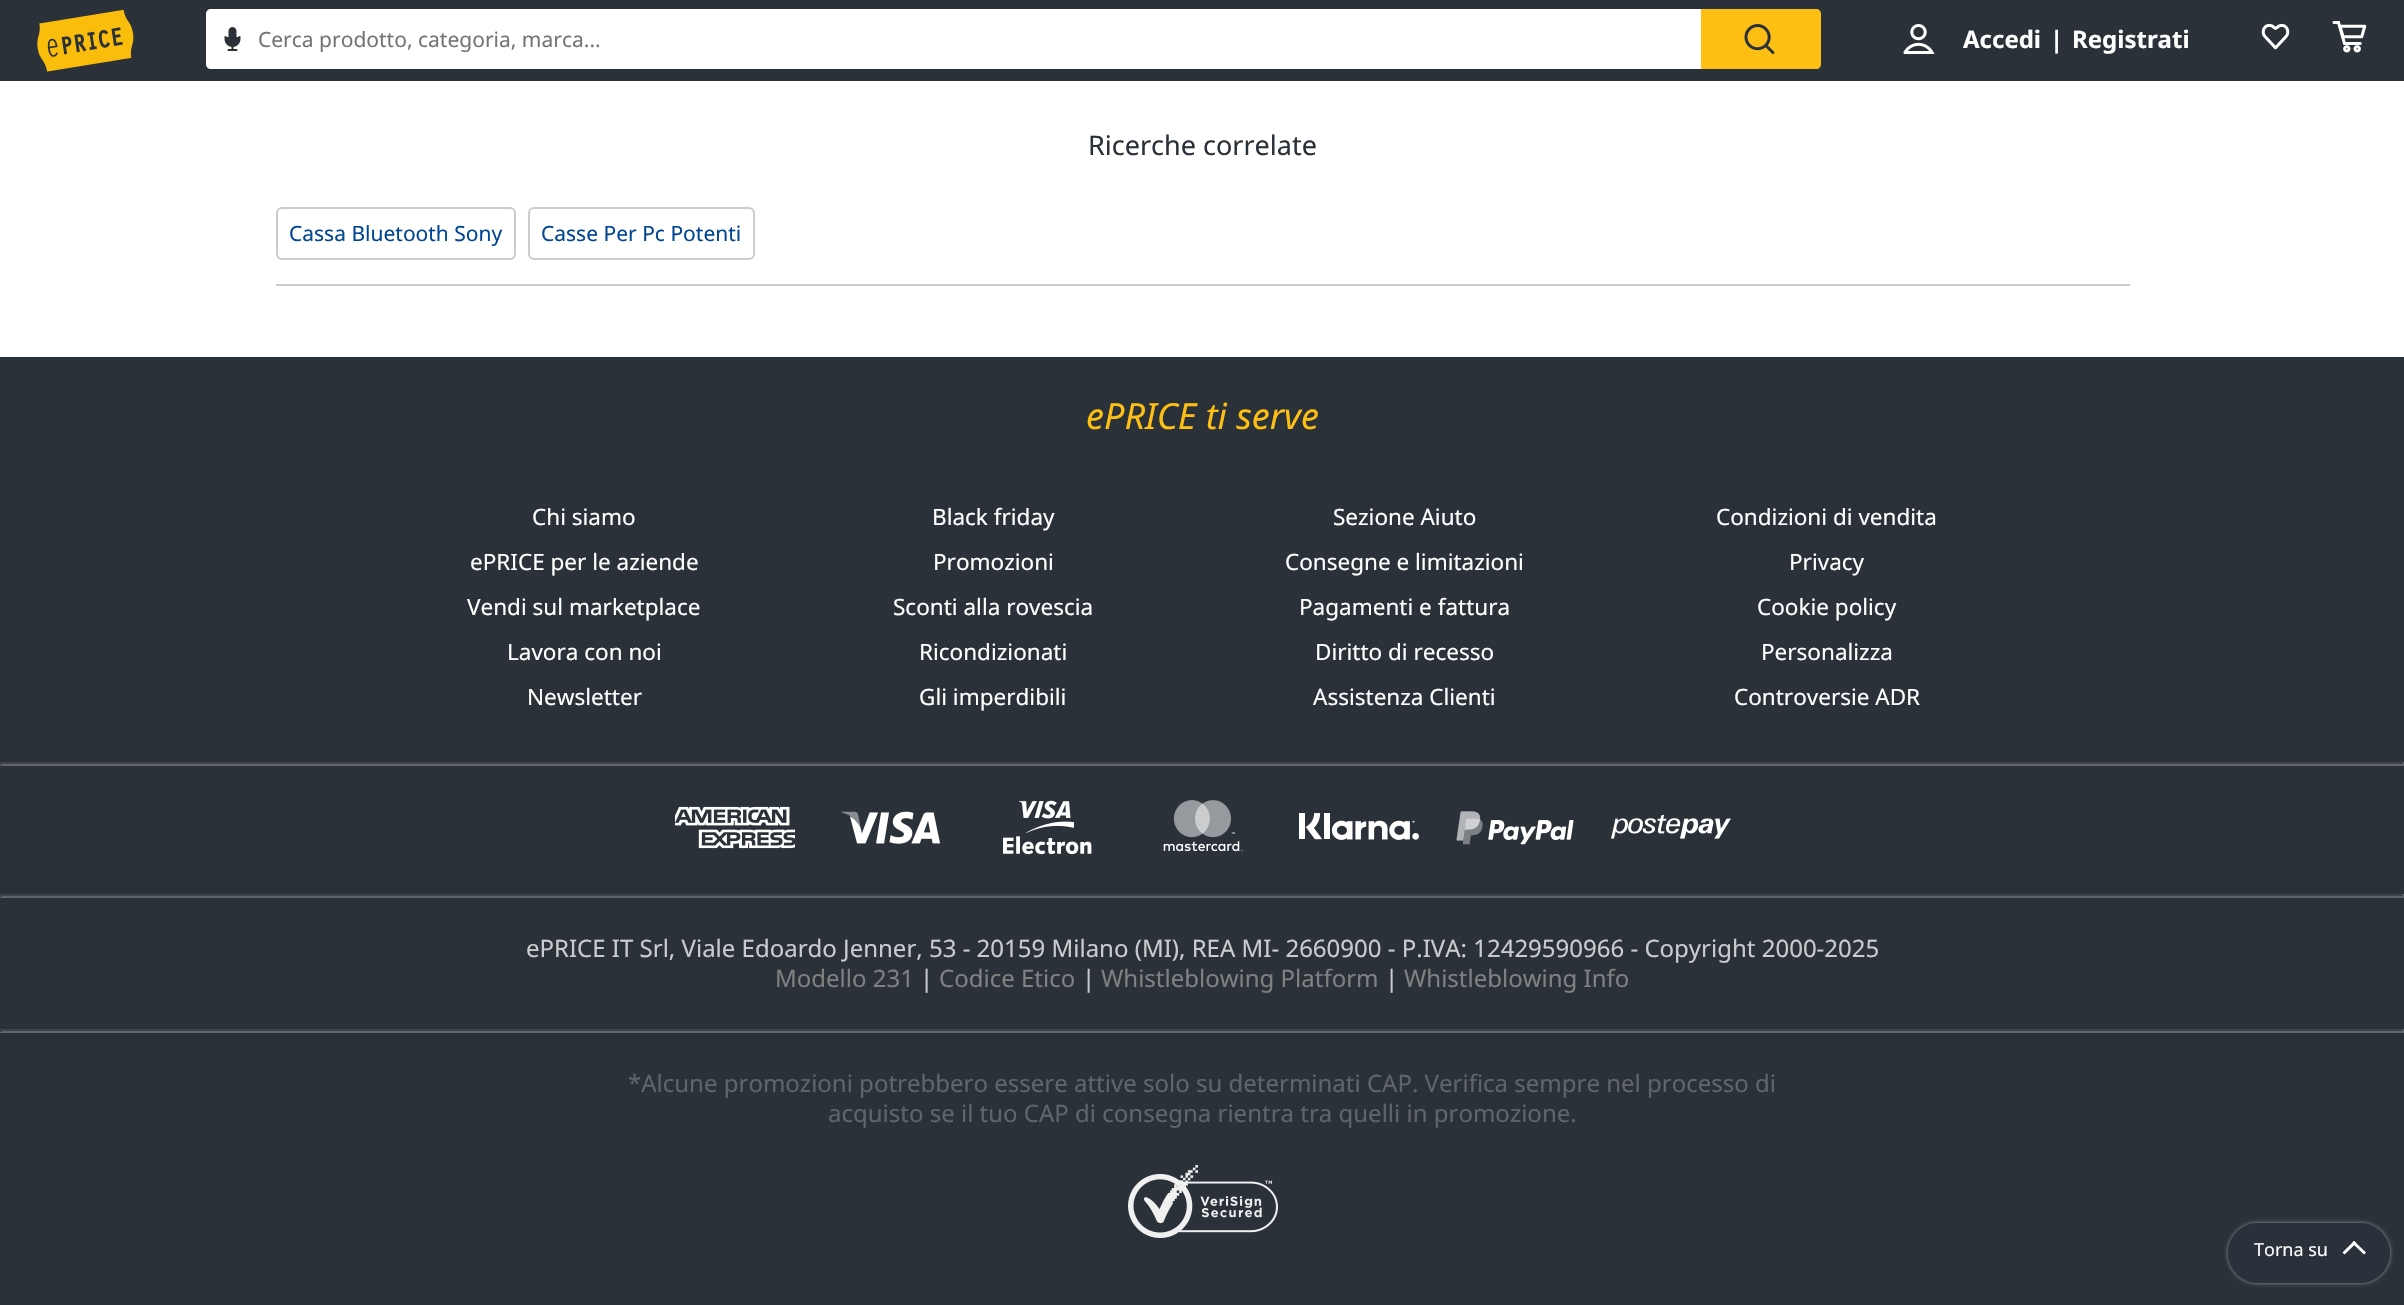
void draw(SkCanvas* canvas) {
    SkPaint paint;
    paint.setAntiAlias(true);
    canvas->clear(0xFFFFFFFF);
    paint.setColor(0xFF2B3139);
    canvas->drawRect(SkRect::MakeXYWH(0, 0, 2404, 81), paint);
    canvas->drawImageRect(SkImages::DeferredFromEncodedData(SkData::MakeFromFileName("img1.png")), SkRect::MakeXYWH(37, 9, 97, 63), SkSamplingOptions());
    paint.setColor(0xFFFFFFFF);
    canvas->drawPath(SkPathBuilder().moveTo(211, 9).lineTo(1701, 9).lineTo(1701, 69).lineTo(211, 69).cubicTo(208, 69, 206, 67, 206, 64).lineTo(206, 14).cubicTo(206, 11, 208, 9, 211, 9).close().detach(), paint);
    canvas->drawImageRect(SkImages::DeferredFromEncodedData(SkData::MakeFromFileName("img2.png")), SkRect::MakeXYWH(224, 27, 17, 24), SkSamplingOptions());
    SkFont font1(fontMgr->matchFamilyStyle("Noto Sans", SkFontStyle::Normal()), 21);
    font1.setSubpixel(true);
    paint.setColor(0xFF757575);
    canvas->drawString("Cerca prodotto, categoria, marca...", 258, 47, font1, paint);
    paint.setColor(0xFFFDBF14);
    canvas->drawPath(SkPathBuilder().moveTo(1701, 9).lineTo(1816, 9).cubicTo(1819, 9, 1821, 11, 1821, 14).lineTo(1821, 64).cubicTo(1821, 67, 1819, 69, 1816, 69).lineTo(1701, 69).close().detach(), paint);
    canvas->drawImageRect(SkImages::DeferredFromEncodedData(SkData::MakeFromFileName("img3.png")), SkRect::MakeXYWH(1744, 24, 31, 30), SkSamplingOptions());
    canvas->drawImageRect(SkImages::DeferredFromEncodedData(SkData::MakeFromFileName("img4.png")), SkRect::MakeXYWH(1903, 24, 32, 30), SkSamplingOptions());
    SkFont font2(fontMgr->matchFamilyStyle("Noto Sans", SkFontStyle::Bold()), 24);
    font2.setSubpixel(true);
    paint.setColor(0xFFFFFFFF);
    canvas->drawString("Accedi", 1963, 48, font2, paint);
    canvas->drawString("|", 2050, 48, font2, paint);
    canvas->drawString("Registrati", 2072, 48, font2, paint);
    canvas->drawImageRect(SkImages::DeferredFromEncodedData(SkData::MakeFromFileName("img5.png")), SkRect::MakeXYWH(2261, 23, 29, 27), SkSamplingOptions());
    canvas->drawImageRect(SkImages::DeferredFromEncodedData(SkData::MakeFromFileName("img6.png")), SkRect::MakeXYWH(2332, 21, 35, 32), SkSamplingOptions());
    SkFont font3(fontMgr->matchFamilyStyle("Noto Sans", SkFontStyle::Normal()), 27);
    font3.setSubpixel(true);
    paint.setColor(0xFF2B3139);
    canvas->drawString("Ricerche correlate", 1088, 155, font3, paint);
    paint.setStyle(SkPaint::kStroke_Style);
    paint.setStrokeWidth(2);
    paint.setColor(0xFFCCCCCC);
    canvas->drawRoundRect(SkRect::MakeXYWH(277, 208, 238, 51), 5, 5, paint);
    paint.setStyle(SkPaint::kFill_Style);
    paint.setColor(0xFF004695);
    canvas->drawString("Cassa Bluetooth Sony", 289, 241, font1, paint);
    paint.setStyle(SkPaint::kStroke_Style);
    paint.setColor(0xFFCCCCCC);
    canvas->drawRoundRect(SkRect::MakeXYWH(529, 208, 225, 51), 5, 5, paint);
    paint.setStyle(SkPaint::kFill_Style);
    paint.setColor(0xFF004695);
    canvas->drawString("Casse Per Pc Potenti", 541, 241, font1, paint);
    paint.setColor(0xFFCACBCD);
    canvas->drawRect(SkRect::MakeXYWH(276, 284, 1854, 2), paint);
    paint.setColor(0xFF2B3139);
    canvas->drawRect(SkRect::MakeXYWH(0, 357, 2404, 948), paint);
    SkFont font4(fontMgr->matchFamilyStyle("Noto Sans", SkFontStyle::Italic()), 36);
    font4.setSubpixel(true);
    paint.setColor(0xFFFDBF14);
    canvas->drawString("ePRICE ti serve", 1086, 429, font4, paint);
    SkFont font5(fontMgr->matchFamilyStyle("Noto Sans", SkFontStyle::Normal()), 22.5f);
    font5.setSubpixel(true);
    paint.setColor(0xFFFFFFFF);
    canvas->drawString("Chi siamo", 532, 525, font5, paint);
    canvas->drawString("ePRICE per le aziende", 470, 570, font5, paint);
    canvas->drawString("Vendi sul marketplace", 467, 615, font5, paint);
    canvas->drawString("Lavora con noi", 507, 660, font5, paint);
    canvas->drawString("Newsletter", 527, 705, font5, paint);
    canvas->drawString("Black friday", 932, 525, font5, paint);
    canvas->drawString("Promozioni", 933, 570, font5, paint);
    canvas->drawString("Sconti alla rovescia", 893, 615, font5, paint);
    canvas->drawString("Ricondizionati", 919, 660, font5, paint);
    canvas->drawString("Gli imperdibili", 919, 705, font5, paint);
    canvas->drawString("Sezione Aiuto", 1333, 525, font5, paint);
    canvas->drawString("Consegne e limitazioni", 1285, 570, font5, paint);
    canvas->drawString("Pagamenti e fattura", 1299, 615, font5, paint);
    canvas->drawString("Diritto di recesso", 1315, 660, font5, paint);
    canvas->drawString("Assistenza Clienti", 1313, 705, font5, paint);
    canvas->drawString("Condizioni di vendita", 1716, 525, font5, paint);
    canvas->drawString("Privacy", 1789, 570, font5, paint);
    canvas->drawString("Cookie policy", 1757, 615, font5, paint);
    canvas->drawString("Personalizza", 1761, 660, font5, paint);
    canvas->drawString("Controversie ADR", 1734, 705, font5, paint);
    paint.setColor(0xFF3F4347);
    canvas->drawRect(SkRect::MakeXYWH(0, 762, 2404, 2), paint);
    paint.setColor(0xFF5F656B);
    canvas->drawRect(SkRect::MakeXYWH(2403, 762, 1, 3), paint);
    canvas->drawRect(SkRect::MakeXYWH(0, 764, 2404, 2), paint);
    paint.setColor(0xFF3F4347);
    canvas->drawRect(SkRect::MakeXYWH(0, 762, 2, 3), paint);
    canvas->drawImageRect(SkImages::DeferredFromEncodedData(SkData::MakeFromFileName("img7.png")), SkRect::MakeXYWH(675, 806, 120, 43), SkSamplingOptions());
    canvas->drawImageRect(SkImages::DeferredFromEncodedData(SkData::MakeFromFileName("img8.png")), SkRect::MakeXYWH(841, 811, 99, 33), SkSamplingOptions());
    canvas->drawImageRect(SkImages::DeferredFromEncodedData(SkData::MakeFromFileName("img9.png")), SkRect::MakeXYWH(1003, 800, 89, 55), SkSamplingOptions());
    canvas->drawImageRect(SkImages::DeferredFromEncodedData(SkData::MakeFromFileName("img10.png")), SkRect::MakeXYWH(1163, 800, 80, 52), SkSamplingOptions());
    canvas->drawImageRect(SkImages::DeferredFromEncodedData(SkData::MakeFromFileName("img11.png")), SkRect::MakeXYWH(1299, 813, 120, 27), SkSamplingOptions());
    canvas->drawImageRect(SkImages::DeferredFromEncodedData(SkData::MakeFromFileName("img12.png")), SkRect::MakeXYWH(1456, 811, 118, 34), SkSamplingOptions());
    canvas->drawImageRect(SkImages::DeferredFromEncodedData(SkData::MakeFromFileName("img13.png")), SkRect::MakeXYWH(1611, 814, 120, 25), SkSamplingOptions());
    canvas->drawRect(SkRect::MakeXYWH(0, 894, 2404, 2), paint);
    paint.setColor(0xFF5F656B);
    canvas->drawRect(SkRect::MakeXYWH(2403, 894, 1, 3), paint);
    canvas->drawRect(SkRect::MakeXYWH(0, 896, 2404, 2), paint);
    paint.setColor(0xFF3F4347);
    canvas->drawRect(SkRect::MakeXYWH(0, 894, 2, 3), paint);
    SkFont font6(fontMgr->matchFamilyStyle("Noto Sans", SkFontStyle::Normal()), 24);
    font6.setSubpixel(true);
    paint.setColor(0xFFCACBCD);
    canvas->drawString("ePRICE IT Srl, Viale Edoardo Jenner, 53 - 20159 Milano (MI), REA MI- 2660900 - P.IVA: 12429590966 - Copyright 2000-2025", 526, 957, font6, paint);
    paint.setColor(0xFF808080);
    canvas->drawString("Modello 231", 775, 987, font6, paint);
    paint.setColor(0xFFCACBCD);
    canvas->drawString("|", 920, 987, font6, paint);
    paint.setColor(0xFF808080);
    canvas->drawString("Codice Etico", 939, 987, font6, paint);
    paint.setColor(0xFFCACBCD);
    canvas->drawString("|", 1082, 987, font6, paint);
    paint.setColor(0xFF808080);
    canvas->drawString("Whistleblowing Platform", 1101, 987, font6, paint);
    paint.setColor(0xFFCACBCD);
    canvas->drawString("|", 1385, 987, font6, paint);
    paint.setColor(0xFF808080);
    canvas->drawString("Whistleblowing Info", 1404, 987, font6, paint);
    paint.setColor(0xFF3F4347);
    canvas->drawRect(SkRect::MakeXYWH(0, 1029, 2404, 2), paint);
    paint.setColor(0xFF5F656B);
    canvas->drawRect(SkRect::MakeXYWH(2403, 1029, 1, 3), paint);
    canvas->drawRect(SkRect::MakeXYWH(0, 1031, 2404, 2), paint);
    paint.setColor(0xFF3F4347);
    canvas->drawRect(SkRect::MakeXYWH(0, 1029, 2, 3), paint);
    paint.setColor(0xFF5F656B);
    canvas->drawString("*Alcune promozioni potrebbero essere attive solo su determinati CAP. Verifica sempre nel processo di", 628, 1092, font6, paint);
    canvas->drawString("acquisto se il tuo CAP di consegna rientra tra quelli in promozione.", 828, 1122, font6, paint);
    canvas->drawImageRect(SkImages::DeferredFromEncodedData(SkData::MakeFromFileName("img14.png")), SkRect::MakeXYWH(1128, 1165, 150, 73), SkSamplingOptions());
    canvas->save();
    canvas->clipPath(SkPathBuilder(SkPathFillType::kEvenOdd).moveTo(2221, 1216).lineTo(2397, 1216).lineTo(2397, 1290).lineTo(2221, 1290).close().moveTo(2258, 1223).lineTo(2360, 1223).cubicTo(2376.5f, 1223, 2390, 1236.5f, 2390, 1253).cubicTo(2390, 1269.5f, 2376.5f, 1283, 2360, 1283).lineTo(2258, 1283).cubicTo(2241.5f, 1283, 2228, 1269.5f, 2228, 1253).cubicTo(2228, 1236.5f, 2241.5f, 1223, 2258, 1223).close().detach(), true);
    paint.setColor(0x80FFFFFF);
    paint.setMaskFilter(SkMaskFilter::MakeBlur(kNormal_SkBlurStyle, 2));
    canvas->drawRoundRect(SkRect::MakeXYWH(2228, 1223, 162, 60), 30, 30, paint);
    paint.setMaskFilter(nullptr);
    canvas->restore();
    paint.setColor(0xCC2A3139);
    canvas->drawRoundRect(SkRect::MakeXYWH(2228, 1223, 162, 60), 30, 30, paint);
    SkFont font7(fontMgr->matchFamilyStyle("Noto Sans", SkFontStyle::Normal()), 18);
    font7.setSubpixel(true);
    paint.setColor(0xFFFFFFFF);
    canvas->drawString("Torna su", 2254, 1256, font7, paint);
    canvas->drawPath(SkPathBuilder().moveTo(2342.5f, 1252.5f).lineTo(2354, 1241).lineTo(2356.5f, 1243).lineTo(2344.5f, 1254.5f).close().detach(), paint);
    canvas->drawPath(SkPathBuilder().moveTo(2352, 1243).lineTo(2354, 1241).lineTo(2366, 1252.5f).lineTo(2364, 1254.5f).close().detach(), paint);
}
